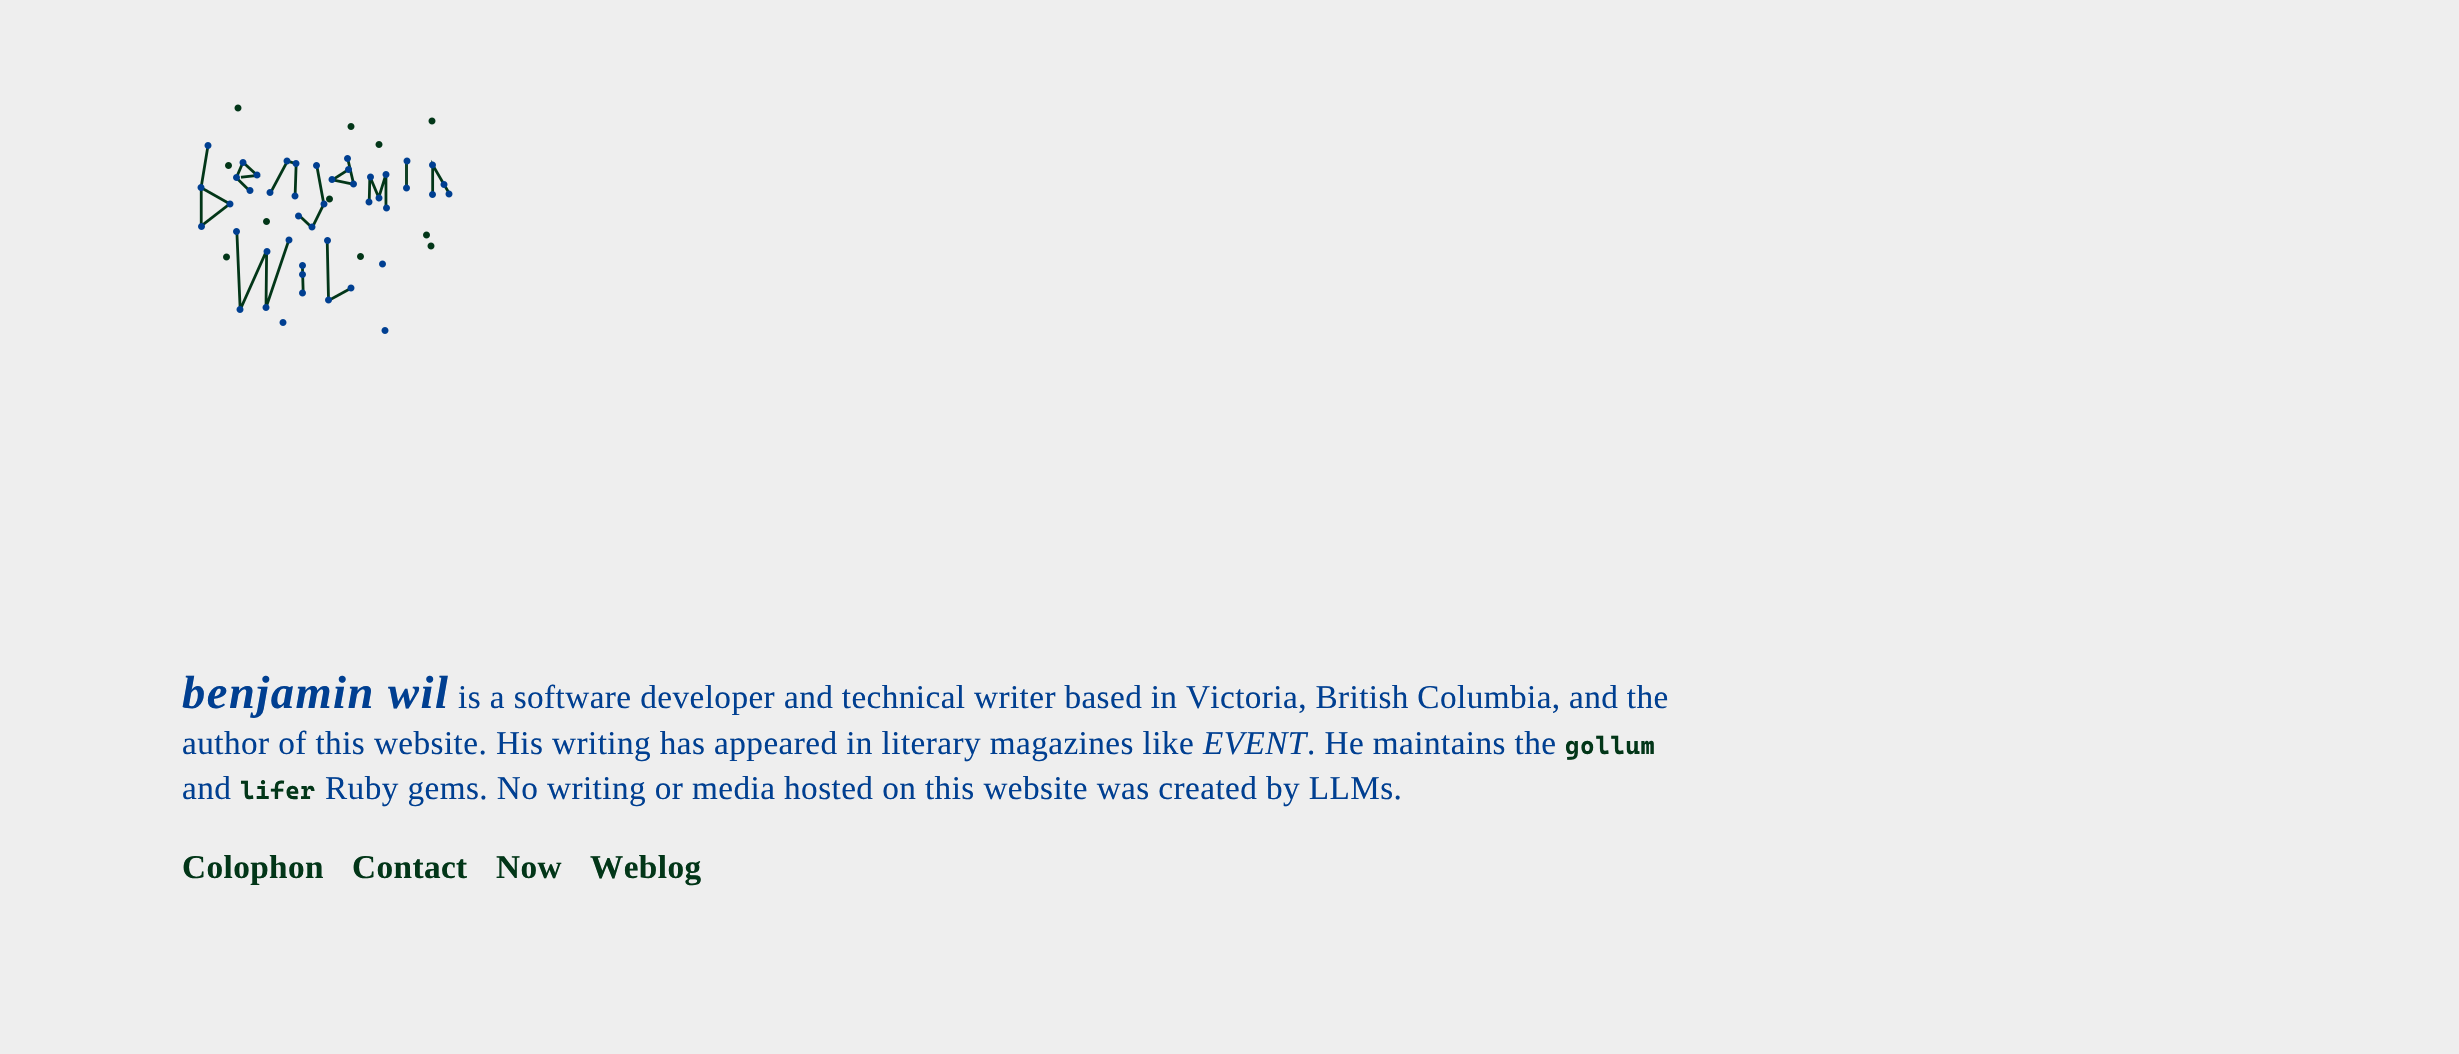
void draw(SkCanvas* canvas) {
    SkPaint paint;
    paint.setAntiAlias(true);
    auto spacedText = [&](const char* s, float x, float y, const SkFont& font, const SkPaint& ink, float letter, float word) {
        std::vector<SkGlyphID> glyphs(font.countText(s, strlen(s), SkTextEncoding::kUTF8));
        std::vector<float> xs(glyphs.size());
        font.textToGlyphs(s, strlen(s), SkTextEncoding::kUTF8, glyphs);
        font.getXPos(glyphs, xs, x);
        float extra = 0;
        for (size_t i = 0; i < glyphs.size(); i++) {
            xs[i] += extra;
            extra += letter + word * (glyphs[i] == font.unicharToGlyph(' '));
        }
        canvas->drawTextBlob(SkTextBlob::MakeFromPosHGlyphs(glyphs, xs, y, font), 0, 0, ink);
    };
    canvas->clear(0xFFEEEEEE);
    canvas->drawImageRect(SkImages::DeferredFromEncodedData(SkData::MakeFromFileName("img1.png")), SkRect::MakeXYWH(197, 104, 256, 230), SkSamplingOptions());
    SkFont font1(fontMgr->matchFamilyStyle("Liberation Serif", SkFontStyle::BoldItalic()), 46.5f);
    font1.setSubpixel(true);
    paint.setColor(0xFF003F91);
    spacedText("benjamin wil", 182, 708, font1, paint, 1.5f, 0);
    SkFont font2(fontMgr->matchFamilyStyle("Liberation Serif", SkFontStyle::Normal()), 33.25f);
    font2.setSubpixel(true);
    spacedText("is a software developer", 458, 708, font2, paint, 0.42f, 0);
    spacedText("and technical writer based in Victoria, British Columbia, and the", 784, 708, font2, paint, 0.42f, -0.25f);
    spacedText("author of this website. His writing has appeared in literary magazines like", 182, 754, font2, paint, 0.42f, 0);
    SkFont font3(fontMgr->matchFamilyStyle("Liberation Serif", SkFontStyle::Italic()), 33.25f);
    font3.setSubpixel(true);
    spacedText("EVENT", 1203, 754, font3, paint, 0.42f, 0);
    spacedText(". He maintains the", 1307, 754, font2, paint, 0.42f, 0);
    SkFont font4(fontMgr->matchFamilyStyle("Cascadia Code", SkFontStyle::Bold()), 25);
    font4.setSubpixel(true);
    paint.setColor(0xFF023618);
    spacedText("gollum", 1565, 754, font4, paint, 0.42f, 0);
    paint.setColor(0xFF003F91);
    spacedText("and", 182, 799, font2, paint, 0.42f, 0);
    paint.setColor(0xFF023618);
    spacedText("lifer", 240, 799, font4, paint, 0.42f, 0);
    paint.setColor(0xFF003F91);
    spacedText("Ruby gems. No writing or media hosted on this website was created by LLMs.", 325, 799, font2, paint, 0.42f, 0);
    SkFont font5(fontMgr->matchFamilyStyle("Liberation Serif", SkFontStyle::Bold()), 33.25f);
    font5.setSubpixel(true);
    paint.setColor(0xFF023618);
    spacedText("Colophon", 182, 878, font5, paint, 0.42f, 0);
    spacedText("Contact", 352, 878, font5, paint, 0.42f, 0);
    spacedText("Now", 496, 878, font5, paint, 0.42f, 0);
    spacedText("Weblog", 590, 878, font5, paint, 0.42f, 0);
}
